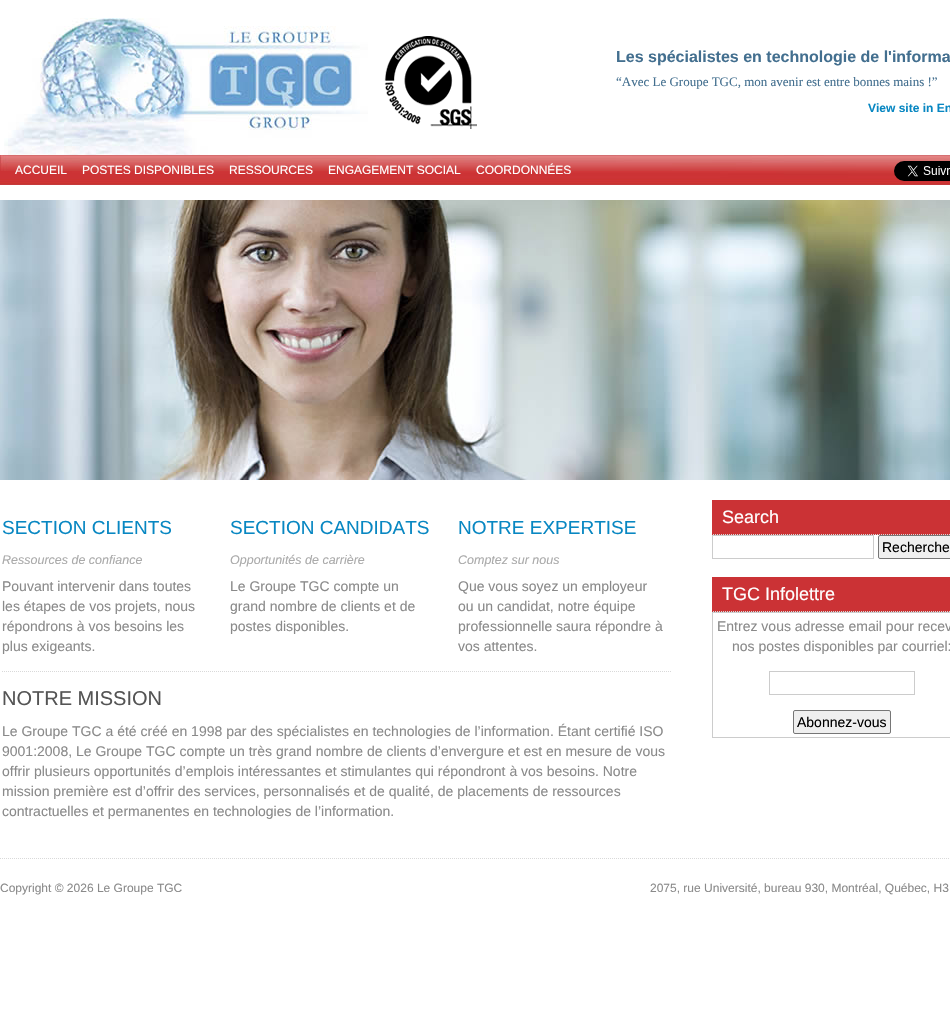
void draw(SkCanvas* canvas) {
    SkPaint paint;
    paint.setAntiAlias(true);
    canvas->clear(0xFFFFFFFF);
    canvas->drawImageRect(SkImages::DeferredFromEncodedData(SkData::MakeFromFileName("img1.png")), SkRect::MakeXYWH(4, 18, 364, 137), SkSamplingOptions());
    canvas->drawImageRect(SkImages::DeferredFromEncodedData(SkData::MakeFromFileName("img2.png")), SkRect::MakeXYWH(384, 36, 93, 93), SkSamplingOptions());
    SkFont font1(fontMgr->matchFamilyStyle("Liberation Sans", SkFontStyle::Bold()), 16);
    font1.setSubpixel(true);
    paint.setColor(0xFF436F8F);
    canvas->drawString("Les spécialistes en technologie de l'informa", 616, 62, font1, paint);
    SkFont font2(fontMgr->matchFamilyStyle("Liberation Serif", SkFontStyle::Normal()), 13);
    font2.setSubpixel(true);
    canvas->drawString("“Avec Le Groupe TGC, mon avenir est entre bonnes mains !”", 616, 86, font2, paint);
    SkFont font3(fontMgr->matchFamilyStyle("Liberation Sans", SkFontStyle::Bold()), 12);
    font3.setSubpixel(true);
    paint.setColor(0xFF0887C2);
    canvas->drawString("View site in En", 868, 112, font3, paint);
    canvas->drawImageRect(SkImages::DeferredFromEncodedData(SkData::MakeFromFileName("img3.png")), SkRect::MakeXYWH(0, 155, 950, 30), SkSamplingOptions());
    SkFont font4(fontMgr->matchFamilyStyle("Liberation Sans", SkFontStyle::Normal()), 12);
    font4.setSubpixel(true);
    paint.setColor(0xFFFFFFFF);
    canvas->drawString("ACCUEIL", 15, 174, font4, paint);
    canvas->drawString("POSTES DISPONIBLES", 82, 174, font4, paint);
    canvas->drawString("RESSOURCES", 229, 174, font4, paint);
    canvas->drawString("ENGAGEMENT SOCIAL", 328, 174, font4, paint);
    canvas->drawString("COORDONNÉES", 476, 174, font4, paint);
    canvas->drawImageRect(SkImages::DeferredFromEncodedData(SkData::MakeFromFileName("img4.png")), SkRect::MakeXYWH(894, 161, 56, 20), SkSamplingOptions());
    canvas->drawImageRect(SkImages::DeferredFromEncodedData(SkData::MakeFromFileName("img5.png")), SkRect::MakeXYWH(0, 200, 950, 280), SkSamplingOptions());
    SkFont font5(fontMgr->matchFamilyStyle("Liberation Sans", SkFontStyle::Normal()), 19);
    font5.setSubpixel(true);
    paint.setColor(0xFF0887C2);
    canvas->drawString("SECTION CLIENTS", 2, 534, font5, paint);
    SkFont font6(fontMgr->matchFamilyStyle("Liberation Sans", SkFontStyle::Italic()), 12.5f);
    font6.setSubpixel(true);
    paint.setColor(0xFFAAAAAA);
    canvas->drawString("Ressources de confiance", 2, 564, font6, paint);
    SkFont font7(fontMgr->matchFamilyStyle("Liberation Sans", SkFontStyle::Normal()), 14);
    font7.setSubpixel(true);
    paint.setColor(0xFF8A8A8A);
    canvas->drawString("Pouvant intervenir dans toutes", 2, 591, font7, paint);
    canvas->drawString("les étapes de vos projets, nous", 2, 611, font7, paint);
    canvas->drawString("répondrons à vos besoins les", 2, 631, font7, paint);
    canvas->drawString("plus exigeants.", 2, 651, font7, paint);
    paint.setColor(0xFF0887C2);
    canvas->drawString("SECTION CANDIDATS", 230, 534, font5, paint);
    paint.setColor(0xFFAAAAAA);
    canvas->drawString("Opportunités de carrière", 230, 564, font6, paint);
    paint.setColor(0xFF8A8A8A);
    canvas->drawString("Le Groupe TGC compte un", 230, 591, font7, paint);
    canvas->drawString("grand nombre de clients et de", 230, 611, font7, paint);
    canvas->drawString("postes disponibles.", 230, 631, font7, paint);
    paint.setColor(0xFF0887C2);
    canvas->drawString("NOTRE EXPERTISE", 458, 534, font5, paint);
    paint.setColor(0xFFAAAAAA);
    canvas->drawString("Comptez sur nous", 458, 564, font6, paint);
    paint.setColor(0xFF8A8A8A);
    canvas->drawString("Que vous soyez un employeur", 458, 591, font7, paint);
    canvas->drawString("ou un candidat, notre équipe", 458, 611, font7, paint);
    canvas->drawString("professionnelle saura répondre à", 458, 631, font7, paint);
    canvas->drawString("vos attentes.", 458, 651, font7, paint);
    canvas->drawImageRect(SkImages::DeferredFromEncodedData(SkData::MakeFromFileName("img6.png")), SkRect::MakeXYWH(2, 671, 669, 1), SkSamplingOptions());
    SkFont font8(fontMgr->matchFamilyStyle("Liberation Sans", SkFontStyle::Normal()), 20);
    font8.setSubpixel(true);
    paint.setColor(0xFF545454);
    canvas->drawString("NOTRE MISSION", 2, 705, font8, paint);
    paint.setColor(0xFF8A8A8A);
    canvas->drawString("Le Groupe TGC a été créé en 1998 par des spécialistes en technologies de l’information. Étant certifié ISO", 2, 736, font7, paint);
    canvas->drawString("9001:2008, Le Groupe TGC compte un très grand nombre de clients d’envergure et est en mesure de vous", 2, 756, font7, paint);
    canvas->drawString("offrir plusieurs opportunités d’emplois intéressantes et stimulantes qui répondront à vos besoins. Notre", 2, 776, font7, paint);
    canvas->drawString("mission première est d’offrir des services, personnalisés et de qualité, de placements de ressources", 2, 796, font7, paint);
    canvas->drawString("contractuelles et permanentes en technologies de l’information.", 2, 816, font7, paint);
    paint.setColor(0xFFCB3235);
    canvas->drawRect(SkRect::MakeXYWH(712, 500, 238, 35), paint);
    canvas->drawImageRect(SkImages::DeferredFromEncodedData(SkData::MakeFromFileName("img7.png")), SkRect::MakeXYWH(713, 534, 237, 1), SkSamplingOptions());
    SkFont font9(fontMgr->matchFamilyStyle("Liberation Sans", SkFontStyle::Normal()), 18);
    font9.setSubpixel(true);
    paint.setColor(0xFFFFFFFF);
    canvas->drawString("Search", 722, 523, font9, paint);
    paint.setStyle(SkPaint::kStroke_Style);
    paint.setStrokeWidth(1);
    paint.setColor(0xFFCCCCCC);
    canvas->drawRect(SkRect::MakeXYWH(712.5f, 535.5f, 161, 23), paint);
    paint.setStyle(SkPaint::kFill_Style);
    paint.setColor(0xFFEFEFEF);
    canvas->drawRoundRect(SkRect::MakeXYWH(878.5f, 535.5f, 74, 23), 1.5f, 1.5f, paint);
    paint.setStyle(SkPaint::kStroke_Style);
    paint.setColor(0xFF767676);
    canvas->drawRoundRect(SkRect::MakeXYWH(878.5f, 535.5f, 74, 23), 1.5f, 1.5f, paint);
    paint.setStyle(SkPaint::kFill_Style);
    paint.setColor(0xFF000000);
    canvas->drawString("Recherche", 882, 552, font7, paint);
    paint.setColor(0xFFCB3235);
    canvas->drawRect(SkRect::MakeXYWH(712, 577, 238, 35), paint);
    canvas->drawImageRect(SkImages::DeferredFromEncodedData(SkData::MakeFromFileName("img7.png")), SkRect::MakeXYWH(713, 611, 237, 1), SkSamplingOptions());
    paint.setColor(0xFFFFFFFF);
    canvas->drawString("TGC Infolettre", 722, 600, font9, paint);
    paint.setStyle(SkPaint::kStroke_Style);
    paint.setColor(0xFFCCCCCC);
    canvas->drawRect(SkRect::MakeXYWH(712.5f, 612.5f, 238, 125), paint);
    paint.setStyle(SkPaint::kFill_Style);
    paint.setColor(0xFF8A8A8A);
    canvas->drawString("Entrez vous adresse email pour recev", 717, 631, font7, paint);
    canvas->drawString("nos postes disponibles par courriel:", 732, 651, font7, paint);
    paint.setStyle(SkPaint::kStroke_Style);
    paint.setColor(0xFFCCCCCC);
    canvas->drawRect(SkRect::MakeXYWH(769.5f, 671.5f, 145, 23), paint);
    paint.setStyle(SkPaint::kFill_Style);
    paint.setColor(0xFFEFEFEF);
    canvas->drawRoundRect(SkRect::MakeXYWH(793.5f, 710.5f, 97, 23), 1.5f, 1.5f, paint);
    paint.setStyle(SkPaint::kStroke_Style);
    paint.setColor(0xFF767676);
    canvas->drawRoundRect(SkRect::MakeXYWH(793.5f, 710.5f, 97, 23), 1.5f, 1.5f, paint);
    paint.setStyle(SkPaint::kFill_Style);
    paint.setColor(0xFF000000);
    canvas->drawString("Abonnez-vous", 797, 727, font7, paint);
    canvas->drawImageRect(SkImages::DeferredFromEncodedData(SkData::MakeFromFileName("img8.png")), SkRect::MakeXYWH(0, 858, 949, 1), SkSamplingOptions());
    paint.setColor(0xFF8A8A8A);
    canvas->drawString("Copyright © 2026 Le Groupe TGC", 0, 892, font4, paint);
    canvas->drawString("2075, rue Université, bureau 930, Montréal, Québec, H3", 650, 892, font4, paint);
}
